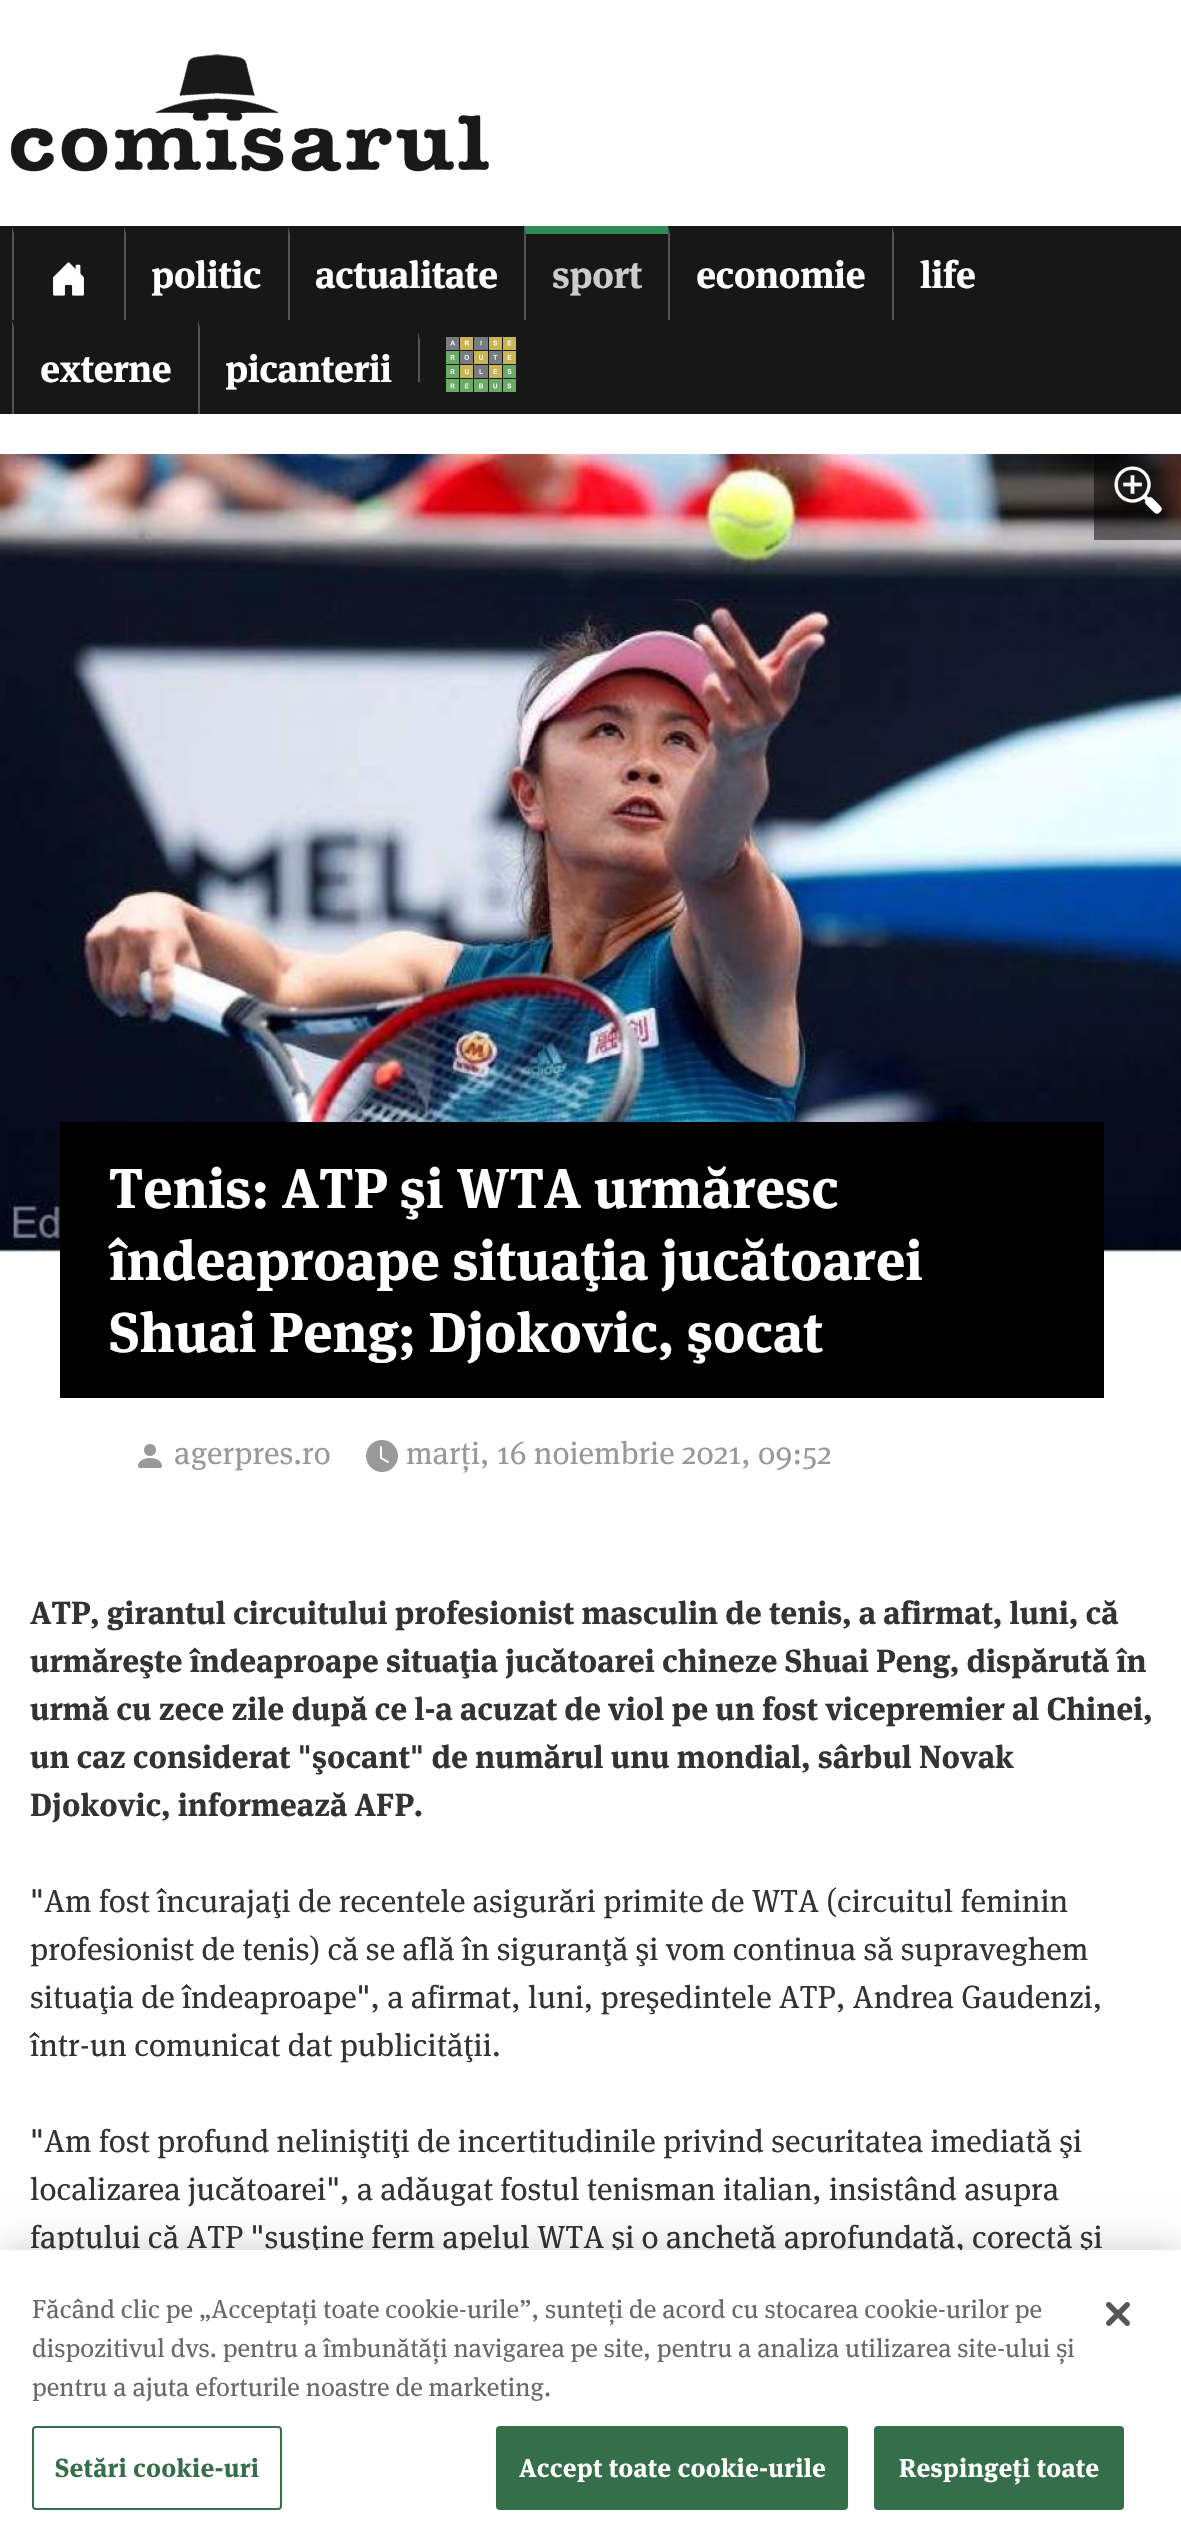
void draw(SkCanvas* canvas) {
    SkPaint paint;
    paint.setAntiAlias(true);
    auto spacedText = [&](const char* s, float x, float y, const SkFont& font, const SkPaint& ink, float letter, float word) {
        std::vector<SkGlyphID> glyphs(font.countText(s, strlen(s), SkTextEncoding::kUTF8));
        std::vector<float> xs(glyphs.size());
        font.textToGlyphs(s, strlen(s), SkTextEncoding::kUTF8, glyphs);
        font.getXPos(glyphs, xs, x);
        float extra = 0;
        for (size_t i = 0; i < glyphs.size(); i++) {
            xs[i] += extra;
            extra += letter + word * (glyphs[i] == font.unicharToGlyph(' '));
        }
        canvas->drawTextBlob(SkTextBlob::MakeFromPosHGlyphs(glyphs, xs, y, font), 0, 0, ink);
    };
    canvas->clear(0xFFFFFFFF);
    canvas->drawImageRect(SkImages::DeferredFromEncodedData(SkData::MakeFromFileName("img1.png")), SkRect::MakeXYWH(10, 54, 479, 118), SkSamplingOptions());
    paint.setColor(0xFF171717);
    canvas->drawRect(SkRect::MakeXYWH(0, 226, 1181, 188), paint);
    paint.setColor(0xFF555555);
    canvas->drawPath(SkPathBuilder().moveTo(12, 320).lineTo(12, 226).lineTo(14, 234).lineTo(14, 320).close().detach(), paint);
    canvas->drawImageRect(SkImages::DeferredFromEncodedData(SkData::MakeFromFileName("img2.png")), SkRect::MakeXYWH(53, 262, 31, 34), SkSamplingOptions());
    canvas->drawPath(SkPathBuilder().moveTo(124, 320).lineTo(124, 226).lineTo(126, 234).lineTo(126, 320).close().detach(), paint);
    SkFont font1(fontMgr->matchFamilyStyle("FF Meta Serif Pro", SkFontStyle::Normal()), 38);
    font1.setSubpixel(true);
    paint.setColor(0xFFFFFFFF);
    spacedText("politic", 151, 288, font1, paint, -0.5f, 0);
    paint.setColor(0xFF555555);
    canvas->drawPath(SkPathBuilder().moveTo(288, 320).lineTo(288, 226).lineTo(290, 234).lineTo(290, 320).close().detach(), paint);
    paint.setColor(0xFFFFFFFF);
    spacedText("actualitate", 315, 288, font1, paint, -0.5f, 0);
    paint.setColor(0xFF2E8B57);
    canvas->drawPath(SkPathBuilder().moveTo(524, 226).lineTo(668, 226).lineTo(668, 234).lineTo(526, 234).close().detach(), paint);
    paint.setColor(0xFF555555);
    canvas->drawPath(SkPathBuilder().moveTo(524, 320).lineTo(524, 226).lineTo(526, 234).lineTo(526, 320).close().detach(), paint);
    paint.setColor(0xFFCCCCCC);
    spacedText("sport", 552, 288, font1, paint, -0.5f, 0);
    paint.setColor(0xFF555555);
    canvas->drawPath(SkPathBuilder().moveTo(668, 320).lineTo(668, 226).lineTo(670, 234).lineTo(670, 320).close().detach(), paint);
    paint.setColor(0xFFFFFFFF);
    spacedText("economie", 696, 288, font1, paint, -0.5f, 0);
    paint.setColor(0xFF555555);
    canvas->drawPath(SkPathBuilder().moveTo(892, 320).lineTo(892, 226).lineTo(894, 234).lineTo(894, 320).close().detach(), paint);
    paint.setColor(0xFFFFFFFF);
    spacedText("life", 920, 288, font1, paint, -0.5f, 0);
    paint.setColor(0xFF555555);
    canvas->drawPath(SkPathBuilder().moveTo(12, 414).lineTo(12, 320).lineTo(14, 328).lineTo(14, 414).close().detach(), paint);
    paint.setColor(0xFFFFFFFF);
    spacedText("externe", 40, 382, font1, paint, -0.5f, 0);
    paint.setColor(0xFF555555);
    canvas->drawPath(SkPathBuilder().moveTo(198, 414).lineTo(198, 320).lineTo(200, 328).lineTo(200, 414).close().detach(), paint);
    paint.setColor(0xFFFFFFFF);
    spacedText("picanterii", 225, 382, font1, paint, -0.5f, 0);
    paint.setColor(0xFF555555);
    canvas->drawPath(SkPathBuilder().moveTo(418, 382).lineTo(418, 332).lineTo(420, 340).lineTo(420, 382).close().detach(), paint);
    canvas->drawImageRect(SkImages::DeferredFromEncodedData(SkData::MakeFromFileName("img3.png")), SkRect::MakeXYWH(446, 337, 70, 55), SkSamplingOptions());
    canvas->drawImageRect(SkImages::DeferredFromEncodedData(SkData::MakeFromFileName("img4.png")), SkRect::MakeXYWH(0, 454, 1181, 800), SkSamplingOptions());
    paint.setColor(0x80000000);
    canvas->drawRect(SkRect::MakeXYWH(1094, 454, 87, 86), paint);
    canvas->drawImageRect(SkImages::DeferredFromEncodedData(SkData::MakeFromFileName("img5.png")), SkRect::MakeXYWH(1114, 466, 48, 48), SkSamplingOptions());
    paint.setColor(0xFF000000);
    canvas->drawRect(SkRect::MakeXYWH(60, 1122, 1044, 276), paint);
    SkFont font2(fontMgr->matchFamilyStyle("FF Meta Serif Pro", SkFontStyle::Normal()), 56);
    font2.setSubpixel(true);
    paint.setColor(0xFFFFFFFF);
    canvas->drawString("Tenis: ATP şi WTA urmăresc", 109, 1208, font2, paint);
    canvas->drawString("îndeaproape situaţia jucătoarei", 109, 1280, font2, paint);
    canvas->drawString("Shuai Peng; Djokovic, şocat", 109, 1352, font2, paint);
    canvas->drawImageRect(SkImages::DeferredFromEncodedData(SkData::MakeFromFileName("img6.png")), SkRect::MakeXYWH(138, 1444, 24, 24), SkSamplingOptions());
    SkFont font3(fontMgr->matchFamilyStyle("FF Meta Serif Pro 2", SkFontStyle::Normal()), 32);
    font3.setSubpixel(true);
    paint.setColor(0xFF999999);
    canvas->drawString("agerpres.ro", 174, 1464, font3, paint);
    canvas->drawImageRect(SkImages::DeferredFromEncodedData(SkData::MakeFromFileName("img7.png")), SkRect::MakeXYWH(366, 1440, 32, 32), SkSamplingOptions());
    canvas->drawString("marți, 16 noiembrie 2021, 09:52", 406, 1464, font3, paint);
    SkFont font4(fontMgr->matchFamilyStyle("FF Meta Serif Pro", SkFontStyle::Normal()), 32);
    font4.setSubpixel(true);
    paint.setColor(0xFF333333);
    canvas->drawString("ATP, girantul circuitului profesionist masculin de tenis, a afirmat, luni, că", 30, 1624, font4, paint);
    canvas->drawString("urmăreşte îndeaproape situaţia jucătoarei chineze Shuai Peng, dispărută în", 30, 1672, font4, paint);
    canvas->drawString("urmă cu zece zile după ce l-a acuzat de viol pe un fost vicepremier al Chinei,", 30, 1720, font4, paint);
    canvas->drawString("un caz considerat \"şocant\" de numărul unu mondial, sârbul Novak", 30, 1768, font4, paint);
    canvas->drawString("Djokovic, informează AFP.", 30, 1816, font4, paint);
    canvas->drawString("\"Am fost încurajaţi de recentele asigurări primite de WTA (circuitul feminin", 30, 1912, font3, paint);
    canvas->drawString("profesionist de tenis) că se află în siguranţă şi vom continua să supraveghem", 30, 1960, font3, paint);
    canvas->drawString("situaţia de îndeaproape\", a afirmat, luni, preşedintele ATP, Andrea Gaudenzi,", 30, 2008, font3, paint);
    canvas->drawString("într-un comunicat dat publicităţii.", 30, 2056, font3, paint);
    canvas->drawString("\"Am fost profund neliniştiţi de incertitudinile privind securitatea imediată şi", 30, 2152, font3, paint);
    canvas->drawString("localizarea jucătoarei\", a adăugat fostul tenisman italian, insistând asupra", 30, 2200, font3, paint);
    canvas->drawString("faptului că ATP \"susţine ferm apelul WTA şi o anchetă aprofundată, corectă şi", 30, 2248, font3, paint);
    paint.setColor(0x33000000);
    paint.setMaskFilter(SkMaskFilter::MakeBlur(kNormal_SkBlurStyle, 18));
    canvas->drawRect(SkRect::MakeXYWH(0, 2250, 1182, 296), paint);
    paint.setMaskFilter(nullptr);
    paint.setColor(0xFFFFFFFF);
    canvas->drawRect(SkRect::MakeXYWH(0, 2250, 1181, 296), paint);
    SkFont font5(fontMgr->matchFamilyStyle("FF Meta Serif Pro 2", SkFontStyle::Normal()), 26);
    font5.setSubpixel(true);
    paint.setColor(0xFF696969);
    canvas->drawString("Făcând clic pe „Acceptați toate cookie-urile”, sunteți de acord cu stocarea cookie-urilor pe", 32, 2318, font5, paint);
    canvas->drawString("dispozitivul dvs. pentru a îmbunătăți navigarea pe site, pentru a analiza utilizarea site-ului și", 32, 2357, font5, paint);
    canvas->drawString("pentru a ajuta eforturile noastre de marketing.", 32, 2396, font5, paint);
    paint.setStyle(SkPaint::kStroke_Style);
    paint.setStrokeWidth(2);
    paint.setColor(0xFF346E4A);
    canvas->drawRoundRect(SkRect::MakeXYWH(33, 2427, 248, 82), 3, 3, paint);
    SkFont font6(fontMgr->matchFamilyStyle("FF Meta Serif Pro", SkFontStyle::Normal()), 26);
    font6.setSubpixel(true);
    paint.setStyle(SkPaint::kFill_Style);
    spacedText("Setări cookie-uri", 55, 2477, font6, paint, 0.25f, 0);
    canvas->drawRoundRect(SkRect::MakeXYWH(497, 2427, 350, 82), 3, 3, paint);
    paint.setStyle(SkPaint::kStroke_Style);
    canvas->drawRoundRect(SkRect::MakeXYWH(497, 2427, 350, 82), 3, 3, paint);
    paint.setStyle(SkPaint::kFill_Style);
    paint.setColor(0xFFFFFFFF);
    spacedText("Accept toate cookie-urile", 519, 2477, font6, paint, 0.25f, 0);
    paint.setColor(0xFF346E4A);
    canvas->drawRoundRect(SkRect::MakeXYWH(875, 2427, 248, 82), 3, 3, paint);
    paint.setStyle(SkPaint::kStroke_Style);
    canvas->drawRoundRect(SkRect::MakeXYWH(875, 2427, 248, 82), 3, 3, paint);
    paint.setStyle(SkPaint::kFill_Style);
    paint.setColor(0xFFFFFFFF);
    spacedText("Respingeți toate", 899, 2477, font6, paint, 0.25f, 0);
    canvas->drawImageRect(SkImages::DeferredFromEncodedData(SkData::MakeFromFileName("img8.png")), SkRect::MakeXYWH(1106, 2302, 24, 24), SkSamplingOptions());
}
